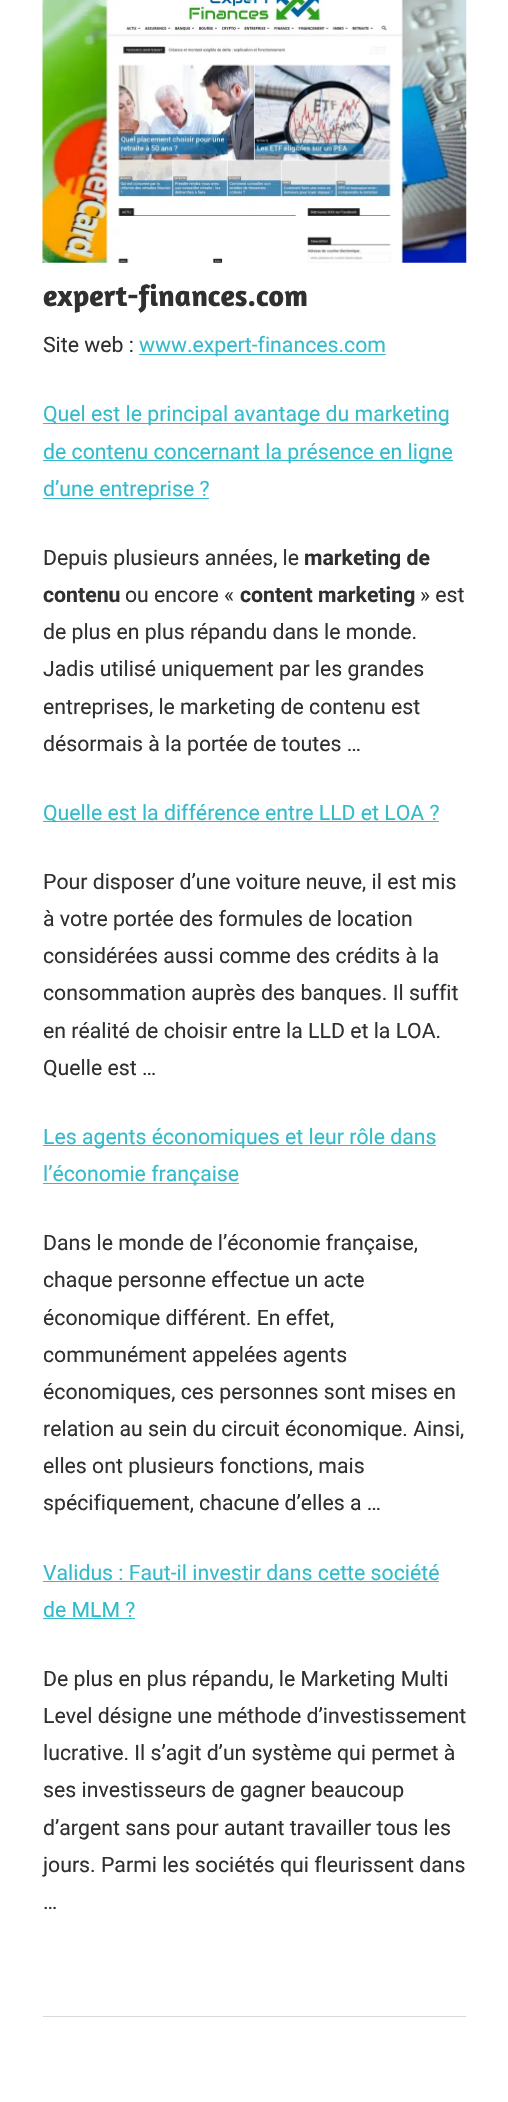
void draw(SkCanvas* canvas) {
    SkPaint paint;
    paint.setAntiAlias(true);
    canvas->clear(0xFFFFFFFF);
    canvas->drawImageRect(SkImages::DeferredFromEncodedData(SkData::MakeFromFileName("img1.png")), SkRect::MakeXYWH(42, 0, 425, 263), SkSamplingOptions());
    SkFont font1(fontMgr->matchFamilyStyle("Amaranth", SkFontStyle::Bold()), 30);
    font1.setSubpixel(true);
    paint.setColor(0xFF303030);
    canvas->drawString("expert-finances.com", 43, 306, font1, paint);
    SkFont font2(fontMgr->matchFamilyStyle("Roboto", SkFontStyle::Normal()), 21.25f);
    font2.setSubpixel(true);
    canvas->drawString("Site web :", 43, 352, font2, paint);
    paint.setColor(0xFF33BBCC);
    canvas->drawRect(SkRect::MakeXYWH(139, 354, 247, 1), paint);
    canvas->drawString("www.expert-finances.com", 139, 352, font2, paint);
    canvas->drawRect(SkRect::MakeXYWH(43, 423, 406, 1), paint);
    canvas->drawString("Quel est le principal avantage du marketing", 43, 421, font2, paint);
    canvas->drawRect(SkRect::MakeXYWH(43, 460, 410, 1), paint);
    canvas->drawString("de contenu concernant la présence en ligne", 43, 459, font2, paint);
    canvas->drawRect(SkRect::MakeXYWH(43, 498, 166, 1), paint);
    canvas->drawString("d’une entreprise ?", 43, 496, font2, paint);
    paint.setColor(0xFF303030);
    canvas->drawString("Depuis plusieurs années, le", 43, 565, font2, paint);
    SkFont font3(fontMgr->matchFamilyStyle("Roboto", SkFontStyle::Bold()), 21.25f);
    font3.setSubpixel(true);
    canvas->drawString("marketing de", 304, 565, font3, paint);
    canvas->drawString("contenu", 43, 602, font3, paint);
    canvas->drawString("ou encore «", 125, 602, font2, paint);
    canvas->drawString("content marketing", 240, 602, font3, paint);
    canvas->drawString("» est", 420, 602, font2, paint);
    canvas->drawString("de plus en plus répandu dans le monde.", 43, 639, font2, paint);
    canvas->drawString("Jadis utilisé uniquement par les grandes", 43, 676, font2, paint);
    canvas->drawString("entreprises, le marketing de contenu est", 43, 714, font2, paint);
    canvas->drawString("désormais à la portée de toutes …", 43, 751, font2, paint);
    paint.setColor(0xFF33BBCC);
    canvas->drawRect(SkRect::MakeXYWH(43, 821, 396, 1), paint);
    canvas->drawString("Quelle est la différence entre LLD et LOA ?", 43, 820, font2, paint);
    paint.setColor(0xFF303030);
    canvas->drawString("Pour disposer d’une voiture neuve, il est mis", 43, 889, font2, paint);
    canvas->drawString("à votre portée des formules de location", 43, 926, font2, paint);
    canvas->drawString("considérées aussi comme des crédits à la", 43, 963, font2, paint);
    canvas->drawString("consommation auprès des banques. Il suffit", 43, 1000, font2, paint);
    canvas->drawString("en réalité de choisir entre la LLD et la LOA.", 43, 1038, font2, paint);
    canvas->drawString("Quelle est …", 43, 1075, font2, paint);
    paint.setColor(0xFF33BBCC);
    canvas->drawRect(SkRect::MakeXYWH(43, 1145, 393, 1), paint);
    canvas->drawString("Les agents économiques et leur rôle dans", 43, 1144, font2, paint);
    canvas->drawRect(SkRect::MakeXYWH(43, 1183, 196, 1), paint);
    canvas->drawString("l’économie française", 43, 1181, font2, paint);
    paint.setColor(0xFF303030);
    canvas->drawString("Dans le monde de l’économie française,", 43, 1250, font2, paint);
    canvas->drawString("chaque personne effectue un acte", 43, 1287, font2, paint);
    canvas->drawString("économique différent. En effet,", 43, 1325, font2, paint);
    canvas->drawString("communément appelées agents", 43, 1362, font2, paint);
    canvas->drawString("économiques, ces personnes sont mises en", 43, 1399, font2, paint);
    canvas->drawString("relation au sein du circuit économique. Ainsi,", 43, 1436, font2, paint);
    canvas->drawString("elles ont plusieurs fonctions, mais", 43, 1473, font2, paint);
    canvas->drawString("spécifiquement, chacune d’elles a …", 43, 1510, font2, paint);
    paint.setColor(0xFF33BBCC);
    canvas->drawString("Validus : Faut-il investir dans cette société", 43, 1580, font2, paint);
    canvas->drawRect(SkRect::MakeXYWH(43, 1581, 396, 1), paint);
    canvas->drawString("de MLM ?", 43, 1617, font2, paint);
    canvas->drawRect(SkRect::MakeXYWH(43, 1618, 92, 1), paint);
    paint.setColor(0xFF303030);
    canvas->drawString("De plus en plus répandu, le Marketing Multi", 43, 1686, font2, paint);
    canvas->drawString("Level désigne une méthode d’investissement", 43, 1723, font2, paint);
    canvas->drawString("lucrative. Il s’agit d’un système qui permet à", 43, 1760, font2, paint);
    canvas->drawString("ses investisseurs de gagner beaucoup", 43, 1797, font2, paint);
    canvas->drawString("d’argent sans pour autant travailler tous les", 43, 1835, font2, paint);
    canvas->drawString("jours. Parmi les sociétés qui fleurissent dans", 43, 1872, font2, paint);
    canvas->drawString("…", 43, 1909, font2, paint);
    paint.setColor(0xFFD9D9D9);
    canvas->drawRect(SkRect::MakeXYWH(43, 2016, 423, 1), paint);
}
